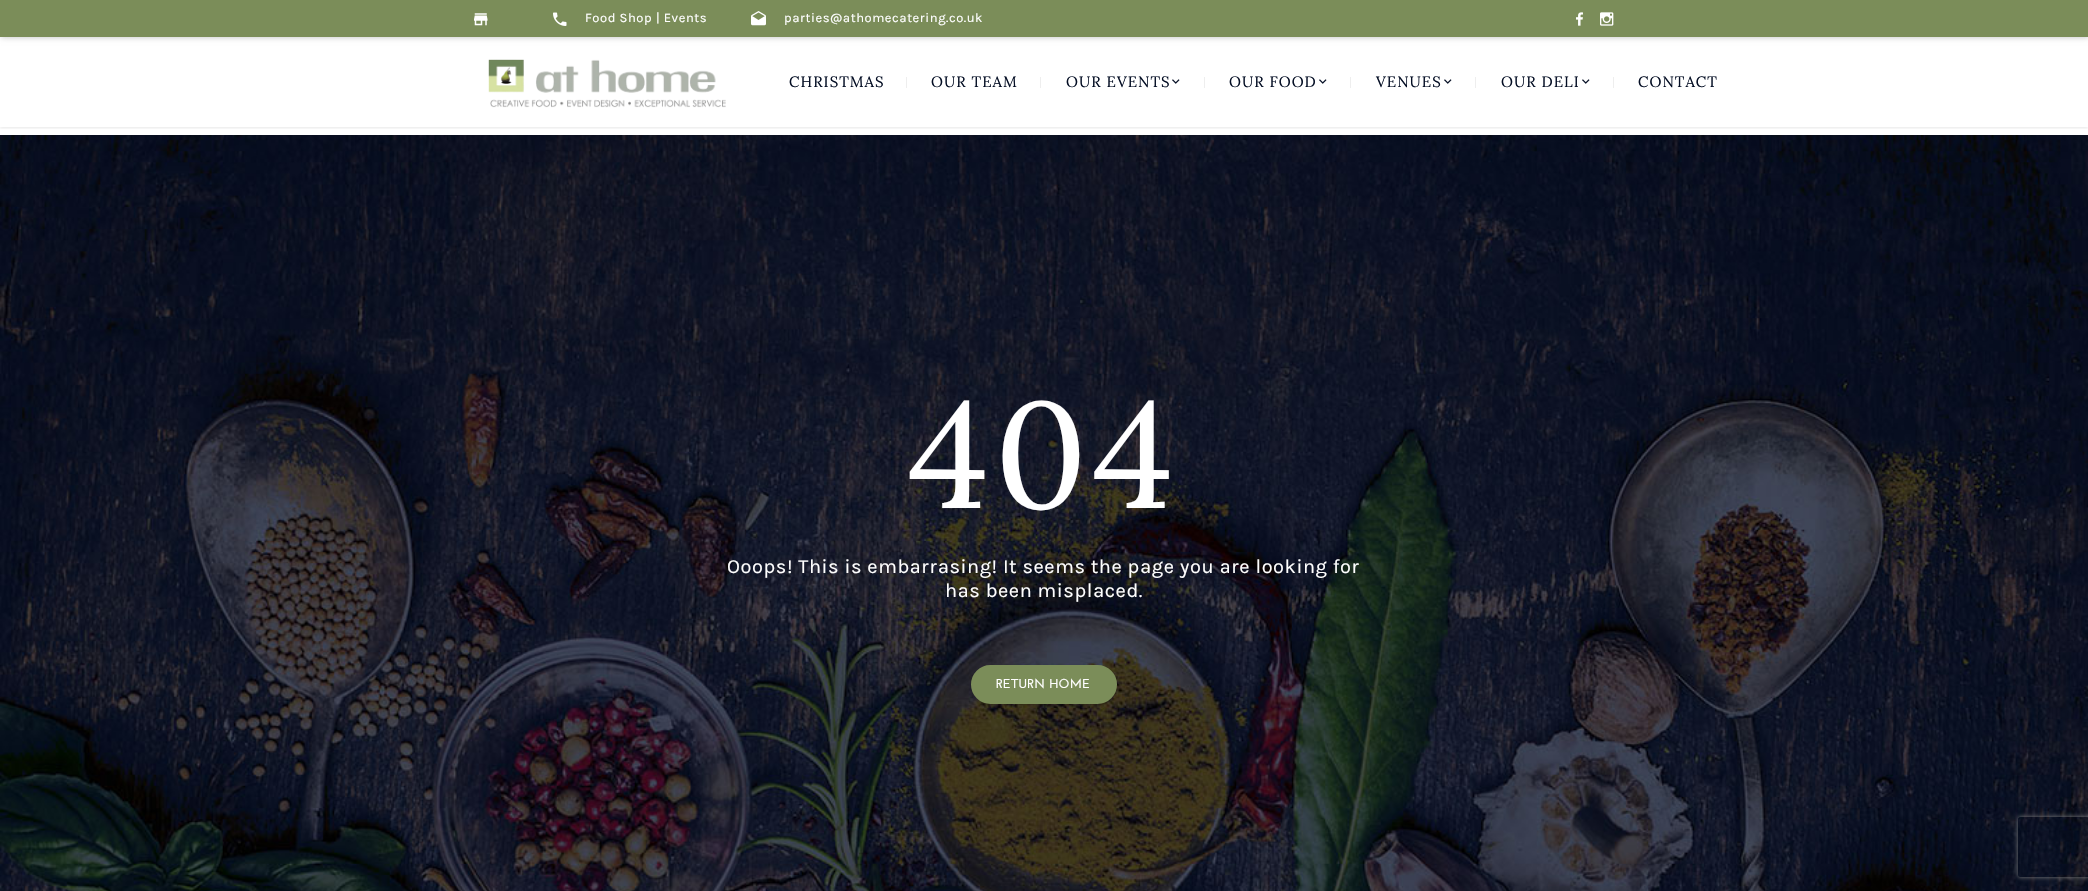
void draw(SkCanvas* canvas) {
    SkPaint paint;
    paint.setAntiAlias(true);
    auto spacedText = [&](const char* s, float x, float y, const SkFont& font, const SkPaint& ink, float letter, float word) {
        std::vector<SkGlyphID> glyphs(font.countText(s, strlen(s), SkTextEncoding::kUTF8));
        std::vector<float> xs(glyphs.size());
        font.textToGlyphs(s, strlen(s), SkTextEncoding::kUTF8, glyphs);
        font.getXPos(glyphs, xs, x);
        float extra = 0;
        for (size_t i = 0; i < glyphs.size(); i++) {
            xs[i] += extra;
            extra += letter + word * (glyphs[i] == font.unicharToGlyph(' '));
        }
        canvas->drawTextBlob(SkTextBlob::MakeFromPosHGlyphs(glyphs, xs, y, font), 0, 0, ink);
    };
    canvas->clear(0xFFFFFFFF);
    paint.setColor(0x40000000);
    paint.setMaskFilter(SkMaskFilter::MakeBlur(kNormal_SkBlurStyle, 3));
    canvas->drawRect(SkRect::MakeXYWH(1, 0, 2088, 37), paint);
    paint.setMaskFilter(nullptr);
    paint.setColor(0xFF7B8D59);
    canvas->drawRect(SkRect::MakeXYWH(0, 0, 2088, 37), paint);
    canvas->drawImageRect(SkImages::DeferredFromEncodedData(SkData::MakeFromFileName("img1.png")), SkRect::MakeXYWH(474, 13, 14, 13), SkSamplingOptions());
    canvas->drawImageRect(SkImages::DeferredFromEncodedData(SkData::MakeFromFileName("img2.png")), SkRect::MakeXYWH(553, 12, 14, 14), SkSamplingOptions());
    SkFont font1(fontMgr->matchFamilyStyle("Karla", SkFontStyle::Normal()), 13);
    font1.setSubpixel(true);
    paint.setColor(0xFFFFFFFF);
    spacedText("Food Shop | Events", 585, 22, font1, paint, 0.55f, 0);
    canvas->drawImageRect(SkImages::DeferredFromEncodedData(SkData::MakeFromFileName("img3.png")), SkRect::MakeXYWH(751, 11, 15, 15), SkSamplingOptions());
    spacedText("parties@athomecatering.co.uk", 784, 22, font1, paint, 0.55f, 0);
    canvas->drawImageRect(SkImages::DeferredFromEncodedData(SkData::MakeFromFileName("img4.png")), SkRect::MakeXYWH(1576, 12, 7, 14), SkSamplingOptions());
    canvas->drawImageRect(SkImages::DeferredFromEncodedData(SkData::MakeFromFileName("img5.png")), SkRect::MakeXYWH(1600, 12, 14, 14), SkSamplingOptions());
    canvas->save();
    canvas->clipRect(SkRect::MakeXYWH(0, 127, 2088, 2));
    paint.setColor(0x17000000);
    paint.setMaskFilter(SkMaskFilter::MakeBlur(kNormal_SkBlurStyle, 1.5f));
    canvas->drawRect(SkRect::MakeXYWH(0, 38, 2088, 90), paint);
    paint.setMaskFilter(nullptr);
    canvas->restore();
    canvas->drawImageRect(SkImages::DeferredFromEncodedData(SkData::MakeFromFileName("img6.png")), SkRect::MakeXYWH(488, 59, 238, 49), SkSamplingOptions());
    SkFont font2(fontMgr->matchFamilyStyle("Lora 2", SkFontStyle::Normal()), 15);
    font2.setSubpixel(true);
    paint.setColor(0xFF040E24);
    spacedText("CHRISTMAS", 789, 87, font2, paint, 1, 0);
    paint.setColor(0xFFEEEEEE);
    canvas->drawRect(SkRect::MakeXYWH(906, 77, 1, 11), paint);
    paint.setColor(0xFF040E24);
    spacedText("OUR TEAM", 931, 87, font2, paint, 1, 0);
    paint.setColor(0xFFEEEEEE);
    canvas->drawRect(SkRect::MakeXYWH(1040, 77, 1, 11), paint);
    paint.setColor(0xFF040E24);
    spacedText("OUR EVENTS", 1066, 87, font2, paint, 1, 0);
    canvas->drawImageRect(SkImages::DeferredFromEncodedData(SkData::MakeFromFileName("img7.png")), SkRect::MakeXYWH(1172, 79, 8, 5), SkSamplingOptions());
    paint.setColor(0xFFEEEEEE);
    canvas->drawRect(SkRect::MakeXYWH(1204, 77, 1, 11), paint);
    paint.setColor(0xFF040E24);
    spacedText("OUR FOOD", 1229, 87, font2, paint, 1, 0);
    canvas->drawImageRect(SkImages::DeferredFromEncodedData(SkData::MakeFromFileName("img7.png")), SkRect::MakeXYWH(1319, 79, 8, 5), SkSamplingOptions());
    paint.setColor(0xFFEEEEEE);
    canvas->drawRect(SkRect::MakeXYWH(1350, 77, 1, 11), paint);
    paint.setColor(0xFF040E24);
    spacedText("VENUES", 1376, 87, font2, paint, 1, 0);
    canvas->drawImageRect(SkImages::DeferredFromEncodedData(SkData::MakeFromFileName("img7.png")), SkRect::MakeXYWH(1444, 79, 8, 5), SkSamplingOptions());
    paint.setColor(0xFFEEEEEE);
    canvas->drawRect(SkRect::MakeXYWH(1475, 77, 1, 11), paint);
    paint.setColor(0xFF040E24);
    spacedText("OUR DELI", 1501, 87, font2, paint, 1, 0);
    canvas->drawImageRect(SkImages::DeferredFromEncodedData(SkData::MakeFromFileName("img7.png")), SkRect::MakeXYWH(1582, 79, 8, 5), SkSamplingOptions());
    paint.setColor(0xFFEEEEEE);
    canvas->drawRect(SkRect::MakeXYWH(1613, 77, 1, 11), paint);
    paint.setColor(0xFF040E24);
    spacedText("CONTACT", 1638, 87, font2, paint, 1, 0);
    canvas->drawImageRect(SkImages::DeferredFromEncodedData(SkData::MakeFromFileName("img8.png")), SkRect::MakeXYWH(0, 135, 2088, 756), SkSamplingOptions());
    SkFont font3(fontMgr->matchFamilyStyle("Lora", SkFontStyle::Normal()), 150);
    font3.setSubpixel(true);
    paint.setColor(0xFFFFFFFF);
    spacedText("404", 908, 508, font3, paint, 5, 0);
    SkFont font4(fontMgr->matchFamilyStyle("Karla", SkFontStyle::Normal()), 20);
    font4.setSubpixel(true);
    spacedText("Ooops! This is embarrasing! It seems the page you are looking for", 727, 573, font4, paint, 0.55f, 0);
    spacedText("has been misplaced.", 945, 597, font4, paint, 0.55f, 0);
    paint.setColor(0x38000000);
    paint.setMaskFilter(SkMaskFilter::MakeBlur(kNormal_SkBlurStyle, 1.5f));
    canvas->drawRoundRect(SkRect::MakeXYWH(971, 666, 146, 39), 19.5f, 19.5f, paint);
    paint.setMaskFilter(nullptr);
    paint.setColor(0xFF7B8D59);
    canvas->drawRoundRect(SkRect::MakeXYWH(972, 666, 144, 37), 18.5f, 18.5f, paint);
    paint.setStyle(SkPaint::kStroke_Style);
    paint.setStrokeWidth(2);
    canvas->drawRoundRect(SkRect::MakeXYWH(972, 666, 144, 37), 18.5f, 18.5f, paint);
    SkFont font5(fontMgr->matchFamilyStyle("Josefin Sans", SkFontStyle::Bold()), 13);
    font5.setSubpixel(true);
    paint.setStyle(SkPaint::kFill_Style);
    paint.setColor(0xFFFFFFFF);
    spacedText("RETURN HOME", 996, 688, font5, paint, 0.25f, 0);
    canvas->save();
    canvas->clipPath(SkPathBuilder(SkPathFillType::kEvenOdd).moveTo(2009, 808).lineTo(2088, 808).lineTo(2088, 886).lineTo(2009, 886).close().moveTo(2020, 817).lineTo(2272, 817).cubicTo(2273, 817, 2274, 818, 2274, 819).lineTo(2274, 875).cubicTo(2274, 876, 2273, 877, 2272, 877).lineTo(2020, 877).cubicTo(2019, 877, 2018, 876, 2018, 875).lineTo(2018, 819).cubicTo(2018, 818, 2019, 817, 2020, 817).close().detach(), true);
    paint.setColor(0xFF808080);
    paint.setMaskFilter(SkMaskFilter::MakeBlur(kNormal_SkBlurStyle, 2.5f));
    canvas->drawRoundRect(SkRect::MakeXYWH(2018, 817, 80, 60), 2, 2, paint);
    paint.setMaskFilter(nullptr);
    canvas->restore();
}
